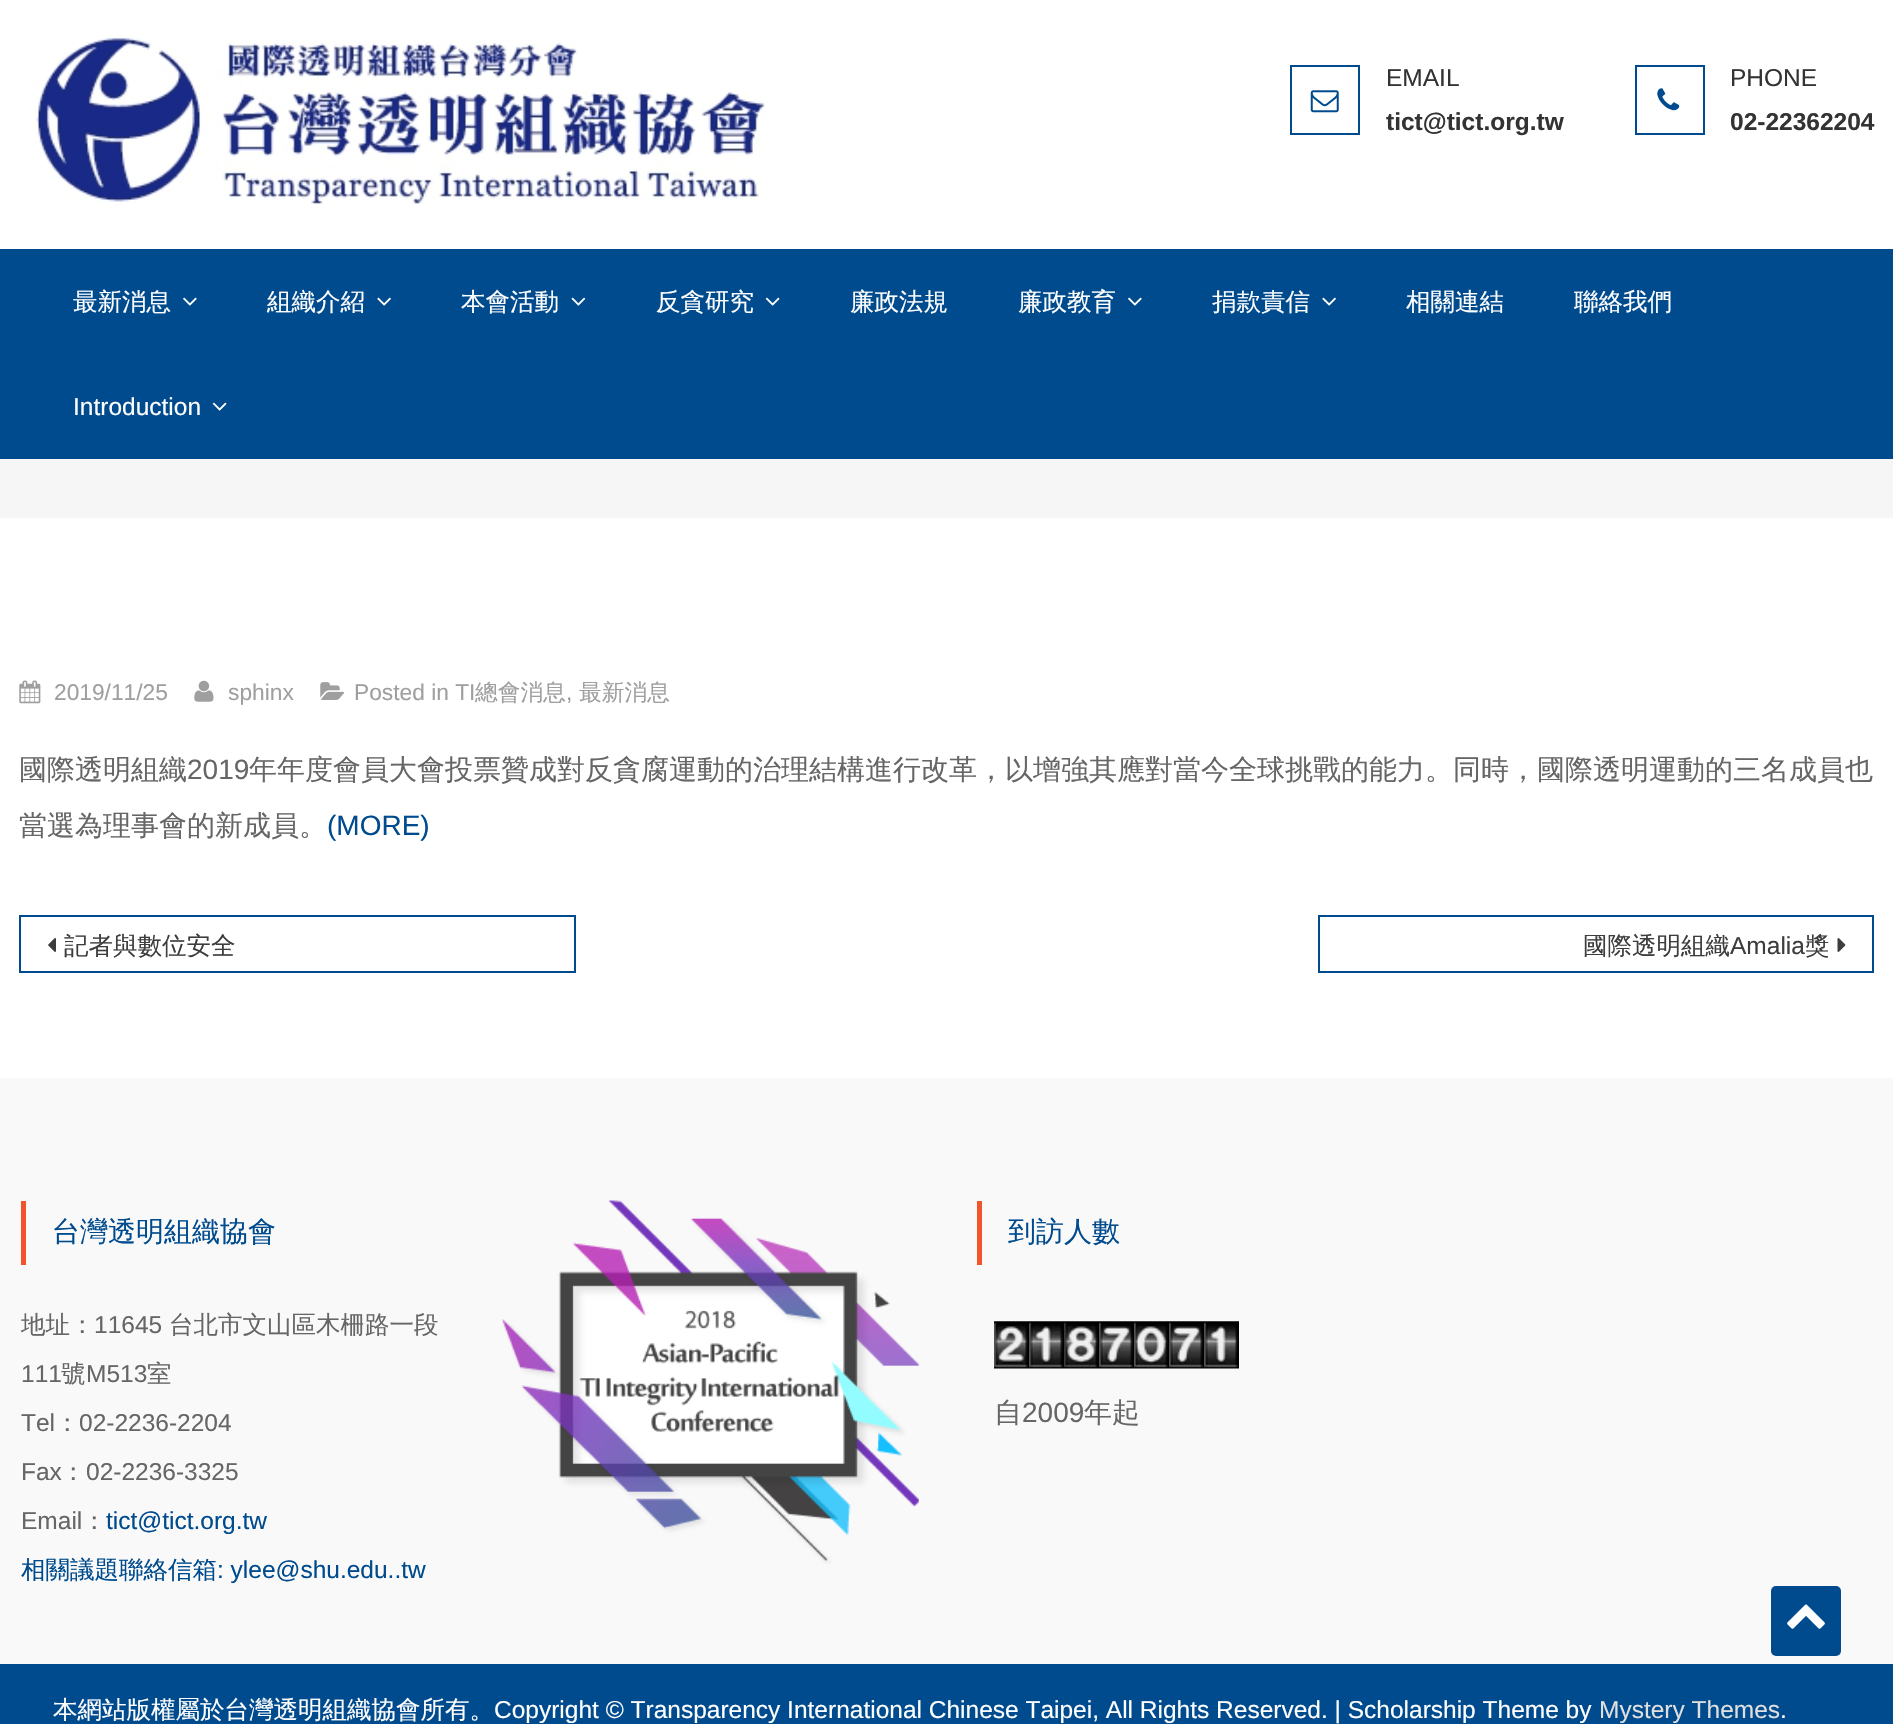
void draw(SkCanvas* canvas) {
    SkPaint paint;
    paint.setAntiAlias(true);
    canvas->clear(0xFFFFFFFF);
    canvas->drawImageRect(SkImages::DeferredFromEncodedData(SkData::MakeFromFileName("img1.png")), SkRect::MakeXYWH(33, 35, 733, 169), SkSamplingOptions());
    paint.setStyle(SkPaint::kStroke_Style);
    paint.setStrokeWidth(2);
    paint.setColor(0xFF004B8E);
    canvas->drawRect(SkRect::MakeXYWH(1291, 66, 68, 68), paint);
    canvas->drawImageRect(SkImages::DeferredFromEncodedData(SkData::MakeFromFileName("img2.png")), SkRect::MakeXYWH(1310, 90, 29, 23), SkSamplingOptions());
    SkFont font1(fontMgr->matchFamilyStyle("Liberation Sans", SkFontStyle::Normal()), 24.5f);
    font1.setSubpixel(true);
    paint.setStyle(SkPaint::kFill_Style);
    paint.setColor(0xFF333333);
    canvas->drawString("EMAIL", 1386, 86, font1, paint);
    SkFont font2(fontMgr->matchFamilyStyle("Liberation Sans", SkFontStyle::Bold()), 24.5f);
    font2.setSubpixel(true);
    canvas->drawString("tict@tict.org.tw", 1386, 130, font2, paint);
    paint.setStyle(SkPaint::kStroke_Style);
    paint.setColor(0xFF004B8E);
    canvas->drawRect(SkRect::MakeXYWH(1636, 66, 68, 68), paint);
    canvas->drawImageRect(SkImages::DeferredFromEncodedData(SkData::MakeFromFileName("img3.png")), SkRect::MakeXYWH(1657, 88, 23, 23), SkSamplingOptions());
    paint.setStyle(SkPaint::kFill_Style);
    paint.setColor(0xFF333333);
    canvas->drawString("PHONE", 1730, 86, font1, paint);
    canvas->drawString("02-22362204", 1730, 130, font2, paint);
    paint.setColor(0xFF004B8E);
    canvas->drawRect(SkRect::MakeXYWH(0, 249, 1893, 210), paint);
    SkFont font3(fontMgr->matchFamilyStyle("WenQuanYi Zen Hei", SkFontStyle(500, SkFontStyle::kNormal_Width, SkFontStyle::kUpright_Slant)), 24.5f);
    font3.setSubpixel(true);
    paint.setColor(0xFFFFFFFF);
    canvas->drawString("最新消息", 73, 310, font3, paint);
    canvas->drawImageRect(SkImages::DeferredFromEncodedData(SkData::MakeFromFileName("img4.png")), SkRect::MakeXYWH(183, 297, 14, 9), SkSamplingOptions());
    canvas->drawString("組織介紹", 267, 310, font3, paint);
    canvas->drawImageRect(SkImages::DeferredFromEncodedData(SkData::MakeFromFileName("img5.png")), SkRect::MakeXYWH(377, 297, 14, 9), SkSamplingOptions());
    canvas->drawString("本會活動", 461, 310, font3, paint);
    canvas->drawImageRect(SkImages::DeferredFromEncodedData(SkData::MakeFromFileName("img6.png")), SkRect::MakeXYWH(571, 297, 15, 9), SkSamplingOptions());
    canvas->drawString("反貪研究", 656, 310, font3, paint);
    canvas->drawImageRect(SkImages::DeferredFromEncodedData(SkData::MakeFromFileName("img7.png")), SkRect::MakeXYWH(765, 297, 15, 9), SkSamplingOptions());
    canvas->drawString("廉政法規", 850, 310, font3, paint);
    canvas->drawString("廉政教育", 1018, 310, font3, paint);
    canvas->drawImageRect(SkImages::DeferredFromEncodedData(SkData::MakeFromFileName("img4.png")), SkRect::MakeXYWH(1128, 297, 14, 9), SkSamplingOptions());
    canvas->drawString("捐款責信", 1212, 310, font3, paint);
    canvas->drawImageRect(SkImages::DeferredFromEncodedData(SkData::MakeFromFileName("img5.png")), SkRect::MakeXYWH(1322, 297, 14, 9), SkSamplingOptions());
    canvas->drawString("相關連結", 1406, 310, font3, paint);
    canvas->drawString("聯絡我們", 1574, 310, font3, paint);
    canvas->drawString("Introduction", 73, 415, font1, paint);
    canvas->drawImageRect(SkImages::DeferredFromEncodedData(SkData::MakeFromFileName("img7.png")), SkRect::MakeXYWH(212, 402, 15, 9), SkSamplingOptions());
    paint.setColor(0xFFF6F6F6);
    canvas->drawRect(SkRect::MakeXYWH(0, 459, 1893, 59), paint);
    canvas->drawImageRect(SkImages::DeferredFromEncodedData(SkData::MakeFromFileName("img8.png")), SkRect::MakeXYWH(19, 680, 22, 24), SkSamplingOptions());
    SkFont font4(fontMgr->matchFamilyStyle("Liberation Sans", SkFontStyle::Normal()), 22.75f);
    font4.setSubpixel(true);
    paint.setColor(0xFF9F9F9F);
    canvas->drawString("2019/11/25", 54, 700, font4, paint);
    canvas->drawImageRect(SkImages::DeferredFromEncodedData(SkData::MakeFromFileName("img9.png")), SkRect::MakeXYWH(194, 680, 20, 22), SkSamplingOptions());
    canvas->drawString("sphinx", 228, 700, font4, paint);
    canvas->drawImageRect(SkImages::DeferredFromEncodedData(SkData::MakeFromFileName("img10.png")), SkRect::MakeXYWH(320, 682, 25, 18), SkSamplingOptions());
    canvas->drawString("Posted in TI", 354, 700, font4, paint);
    SkFont font5(fontMgr->matchFamilyStyle("WenQuanYi Zen Hei", SkFontStyle(500, SkFontStyle::kNormal_Width, SkFontStyle::kUpright_Slant)), 22.75f);
    font5.setSubpixel(true);
    canvas->drawString("總會消息", 475, 700, font5, paint);
    canvas->drawString(",", 566, 700, font4, paint);
    canvas->drawString("最新消息", 579, 700, font5, paint);
    SkFont font6(fontMgr->matchFamilyStyle("WenQuanYi Zen Hei", SkFontStyle(500, SkFontStyle::kNormal_Width, SkFontStyle::kUpright_Slant)), 28);
    font6.setSubpixel(true);
    paint.setColor(0xFF666666);
    canvas->drawString("國際透明組織", 19, 779, font6, paint);
    SkFont font7(fontMgr->matchFamilyStyle("Liberation Sans", SkFontStyle::Normal()), 28);
    font7.setSubpixel(true);
    canvas->drawString("2019", 187, 779, font7, paint);
    canvas->drawString("年年度會員大會投票贊成對反貪腐運動的治理結構進行改革，以增強其應對當今全球挑戰的能力。同時，國際透明運動的三名成員也", 249, 779, font6, paint);
    canvas->drawString("當選為理事會的新成員。", 19, 835, font6, paint);
    paint.setColor(0xFF004B8E);
    canvas->drawString("(MORE)", 327, 835, font7, paint);
    paint.setStyle(SkPaint::kStroke_Style);
    canvas->drawRect(SkRect::MakeXYWH(20, 916, 555, 56), paint);
    canvas->drawImageRect(SkImages::DeferredFromEncodedData(SkData::MakeFromFileName("img11.png")), SkRect::MakeXYWH(48, 938, 8, 14), SkSamplingOptions());
    paint.setStyle(SkPaint::kFill_Style);
    paint.setColor(0xFF3D3D3D);
    canvas->drawString("記者與數位安全", 64, 954, font3, paint);
    paint.setStyle(SkPaint::kStroke_Style);
    paint.setColor(0xFF004B8E);
    canvas->drawRect(SkRect::MakeXYWH(1319, 916, 554, 56), paint);
    paint.setStyle(SkPaint::kFill_Style);
    paint.setColor(0xFF3D3D3D);
    canvas->drawString("國際透明組織", 1583, 954, font3, paint);
    canvas->drawString("Amalia", 1730, 954, font1, paint);
    canvas->drawString("獎", 1805, 954, font3, paint);
    canvas->drawImageRect(SkImages::DeferredFromEncodedData(SkData::MakeFromFileName("img12.png")), SkRect::MakeXYWH(1837, 938, 9, 14), SkSamplingOptions());
    paint.setColor(0xFFF9F9F9);
    canvas->drawRect(SkRect::MakeXYWH(0, 1078, 1893, 586), paint);
    paint.setColor(0xFFF2552C);
    canvas->drawRect(SkRect::MakeXYWH(21, 1201, 5, 64), paint);
    paint.setColor(0xFF004B8E);
    canvas->drawString("台灣透明組織協會", 52, 1241, font6, paint);
    paint.setColor(0xFF666666);
    canvas->drawString("地址：", 21, 1333, font3, paint);
    canvas->drawString("11645", 94, 1333, font1, paint);
    canvas->drawString("台北市文山區木柵路一段", 169, 1333, font3, paint);
    canvas->drawString("111", 21, 1382, font1, paint);
    canvas->drawString("號", 61, 1382, font3, paint);
    canvas->drawString("M513", 86, 1382, font1, paint);
    canvas->drawString("室", 147, 1382, font3, paint);
    canvas->drawString("Tel", 21, 1431, font1, paint);
    canvas->drawString("：", 55, 1431, font3, paint);
    canvas->drawString("02-2236-2204", 79, 1431, font1, paint);
    canvas->drawString("Fax", 21, 1480, font1, paint);
    canvas->drawString("：", 61, 1480, font3, paint);
    canvas->drawString("02-2236-3325", 86, 1480, font1, paint);
    canvas->drawString("Email", 21, 1529, font1, paint);
    canvas->drawString("：", 82, 1529, font3, paint);
    paint.setColor(0xFF004B8E);
    canvas->drawString("tict@tict.org.tw", 106, 1529, font1, paint);
    canvas->drawString("相關議題聯絡信箱", 21, 1578, font3, paint);
    canvas->drawString(": ylee@shu.edu..tw", 217, 1578, font1, paint);
    canvas->drawImageRect(SkImages::DeferredFromEncodedData(SkData::MakeFromFileName("img13.png")), SkRect::MakeXYWH(501, 1200, 418, 364), SkSamplingOptions());
    paint.setColor(0xFFF2552C);
    canvas->drawRect(SkRect::MakeXYWH(977, 1201, 5, 64), paint);
    paint.setColor(0xFF004B8E);
    canvas->drawString("到訪人數", 1008, 1241, font6, paint);
    canvas->drawImageRect(SkImages::DeferredFromEncodedData(SkData::MakeFromFileName("img14.png")), SkRect::MakeXYWH(994, 1321, 35, 48), SkSamplingOptions());
    canvas->drawImageRect(SkImages::DeferredFromEncodedData(SkData::MakeFromFileName("img15.png")), SkRect::MakeXYWH(1029, 1321, 35, 48), SkSamplingOptions());
    canvas->drawImageRect(SkImages::DeferredFromEncodedData(SkData::MakeFromFileName("img16.png")), SkRect::MakeXYWH(1064, 1321, 35, 48), SkSamplingOptions());
    canvas->drawImageRect(SkImages::DeferredFromEncodedData(SkData::MakeFromFileName("img17.png")), SkRect::MakeXYWH(1099, 1321, 35, 48), SkSamplingOptions());
    canvas->drawImageRect(SkImages::DeferredFromEncodedData(SkData::MakeFromFileName("img18.png")), SkRect::MakeXYWH(1134, 1321, 35, 48), SkSamplingOptions());
    canvas->drawImageRect(SkImages::DeferredFromEncodedData(SkData::MakeFromFileName("img17.png")), SkRect::MakeXYWH(1169, 1321, 35, 48), SkSamplingOptions());
    canvas->drawImageRect(SkImages::DeferredFromEncodedData(SkData::MakeFromFileName("img19.png")), SkRect::MakeXYWH(1204, 1321, 35, 48), SkSamplingOptions());
    paint.setColor(0xFF666666);
    canvas->drawString("自", 994, 1422, font6, paint);
    canvas->drawString("2009", 1022, 1422, font7, paint);
    canvas->drawString("年起", 1084, 1422, font6, paint);
    paint.setColor(0xFF004B8E);
    canvas->drawRect(SkRect::MakeXYWH(0, 1664, 1893, 60), paint);
    paint.setColor(0xFFFFFFFF);
    canvas->drawString("本網站版權屬於台灣透明組織協會所有。", 53, 1718, font3, paint);
    canvas->drawString("Copyright © Transparency International Chinese Taipei, All Rights Reserved. | Scholarship Theme by", 494, 1718, font1, paint);
    paint.setColor(0xFFDFDFDF);
    canvas->drawString("Mystery Themes", 1599, 1718, font1, paint);
    paint.setColor(0xFFFFFFFF);
    canvas->drawString(".", 1780, 1718, font1, paint);
    paint.setColor(0xFF004B8E);
    canvas->drawRoundRect(SkRect::MakeXYWH(1771, 1586, 70, 70), 5, 5, paint);
    canvas->drawImageRect(SkImages::DeferredFromEncodedData(SkData::MakeFromFileName("img20.png")), SkRect::MakeXYWH(1787, 1604, 38, 25), SkSamplingOptions());
}
